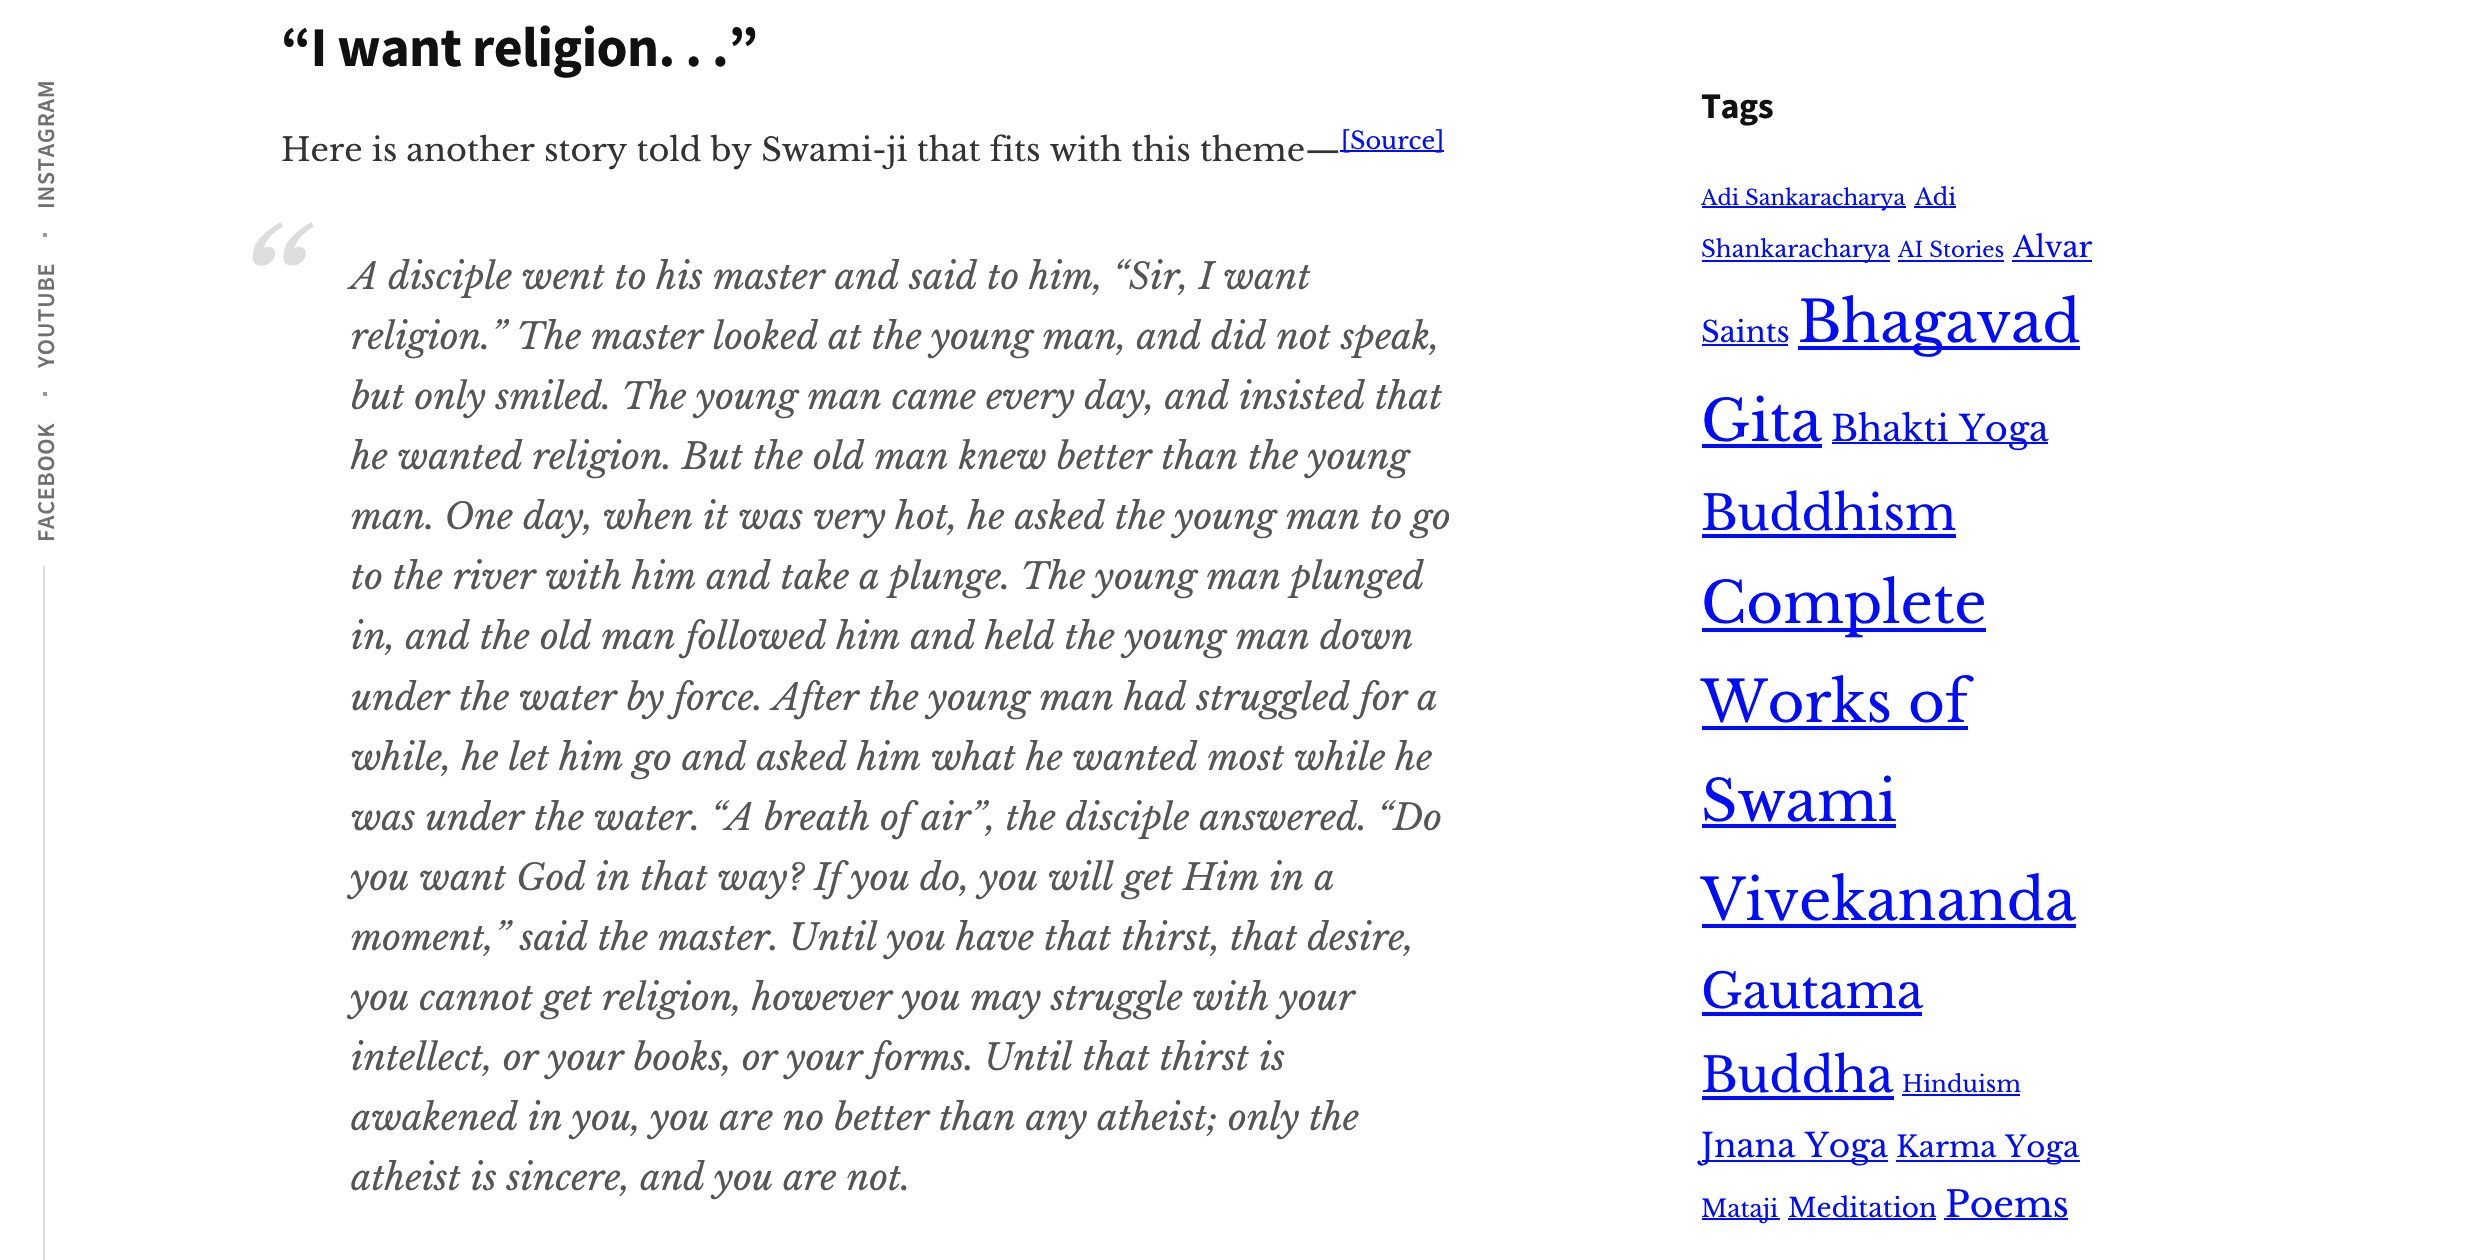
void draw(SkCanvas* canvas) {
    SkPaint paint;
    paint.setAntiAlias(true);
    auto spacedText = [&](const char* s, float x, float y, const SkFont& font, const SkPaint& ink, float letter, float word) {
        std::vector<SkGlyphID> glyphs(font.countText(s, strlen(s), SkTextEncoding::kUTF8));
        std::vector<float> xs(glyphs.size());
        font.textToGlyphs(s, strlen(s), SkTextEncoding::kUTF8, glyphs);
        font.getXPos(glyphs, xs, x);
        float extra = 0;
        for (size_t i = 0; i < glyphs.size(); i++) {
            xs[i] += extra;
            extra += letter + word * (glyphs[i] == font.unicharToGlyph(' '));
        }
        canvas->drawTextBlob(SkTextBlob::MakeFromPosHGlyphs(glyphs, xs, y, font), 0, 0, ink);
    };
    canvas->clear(0xFFFFFFFF);
    SkFont font1(fontMgr->matchFamilyStyle("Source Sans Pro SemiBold", SkFontStyle(600, SkFontStyle::kNormal_Width, SkFontStyle::kUpright_Slant)), 24);
    font1.setSubpixel(true);
    paint.setColor(0xFF707070);
    canvas->save();
    canvas->rotate(-90, 54, 209);
    spacedText("INSTAGRAM", 54, 209, font1, paint, 0.75f, 0);
    canvas->restore();
    paint.setColor(0xFF999999);
    canvas->drawPath(SkPathBuilder().moveTo(43, 237).lineTo(43, 233).lineTo(47, 233).lineTo(47, 237).close().detach(), paint);
    paint.setColor(0xFF707070);
    canvas->save();
    canvas->rotate(-90, 54, 368);
    spacedText("YOUTUBE", 54, 368, font1, paint, 0.75f, 0);
    canvas->restore();
    paint.setColor(0xFF999999);
    canvas->drawPath(SkPathBuilder().moveTo(43, 396).lineTo(43, 392).lineTo(47, 392).lineTo(47, 396).close().detach(), paint);
    paint.setColor(0xFF707070);
    canvas->save();
    canvas->rotate(-90, 54, 542);
    spacedText("FACEBOOK", 54, 542, font1, paint, 0.75f, 0);
    canvas->restore();
    paint.setColor(0xFFDDDDDD);
    canvas->drawRect(SkRect::MakeXYWH(43, 566, 2, 694), paint);
    SkFont font2(fontMgr->matchFamilyStyle("Source Sans Pro", SkFontStyle::Bold()), 56);
    font2.setSubpixel(true);
    paint.setColor(0xFF111111);
    spacedText("“I want religion. . .”", 281, 66, font2, paint, -0.6f, 0);
    SkFont font3(fontMgr->matchFamilyStyle("Libre Baskerville", SkFontStyle::Normal()), 32);
    font3.setSubpixel(true);
    paint.setColor(0xFF333333);
    canvas->drawString("Here is another story told by Swami-ji that fits with this theme—", 281, 161, font3, paint);
    paint.setColor(0xFF000CFF);
    canvas->drawRect(SkRect::MakeXYWH(1340, 150, 104, 2), paint);
    SkFont font4(fontMgr->matchFamilyStyle("Libre Baskerville", SkFontStyle::Normal()), 24);
    font4.setSubpixel(true);
    canvas->drawString("[Source]", 1341, 149, font4, paint);
    SkFont font5(fontMgr->matchFamilyStyle("Libre Baskerville", SkFontStyle::Italic()), 160);
    font5.setSubpixel(true);
    paint.setColor(0xFFDDDDDD);
    canvas->drawString("“", 231, 355, font5, paint);
    SkFont font6(fontMgr->matchFamilyStyle("Libre Baskerville", SkFontStyle::Italic()), 36);
    font6.setSubpixel(true);
    paint.setColor(0xFF555555);
    canvas->drawString("A disciple went to his master and said to him, “Sir, I want", 351, 289, font6, paint);
    canvas->drawString("religion.” The master looked at the young man, and did not speak,", 351, 349, font6, paint);
    canvas->drawString("but only smiled. The young man came every day, and insisted that", 351, 409, font6, paint);
    canvas->drawString("he wanted religion. But the old man knew better than the young", 351, 469, font6, paint);
    canvas->drawString("man. One day, when it was very hot, he asked the young man to go", 351, 529, font6, paint);
    canvas->drawString("to the river with him and take a plunge. The young man plunged", 351, 589, font6, paint);
    canvas->drawString("in, and the old man followed him and held the young man down", 351, 649, font6, paint);
    canvas->drawString("under the water by force. After the young man had struggled for a", 351, 710, font6, paint);
    canvas->drawString("while, he let him go and asked him what he wanted most while he", 351, 770, font6, paint);
    canvas->drawString("was under the water. “A breath of air”, the disciple answered. “Do", 351, 830, font6, paint);
    canvas->drawString("you want God in that way? If you do, you will get Him in a", 351, 890, font6, paint);
    canvas->drawString("moment,” said the master. Until you have that thirst, that desire,", 351, 950, font6, paint);
    canvas->drawString("you cannot get religion, however you may struggle with your", 351, 1010, font6, paint);
    canvas->drawString("intellect, or your books, or your forms. Until that thirst is", 351, 1070, font6, paint);
    canvas->drawString("awakened in you, you are no better than any atheist; only the", 351, 1130, font6, paint);
    canvas->drawString("atheist is sincere, and you are not.", 351, 1190, font6, paint);
    SkFont font7(fontMgr->matchFamilyStyle("Source Sans Pro", SkFontStyle::Bold()), 36);
    font7.setSubpixel(true);
    paint.setColor(0xFF111111);
    spacedText("Tags", 1701, 118, font7, paint, -0.5f, 0);
    paint.setColor(0xFF000CFF);
    canvas->drawRect(SkRect::MakeXYWH(1702, 206, 204, 2), paint);
    SkFont font8(fontMgr->matchFamilyStyle("Libre Baskerville", SkFontStyle::Normal()), 21.25f);
    font8.setSubpixel(true);
    canvas->drawString("Adi Sankaracharya", 1701, 205, font8, paint);
    SkFont font9(fontMgr->matchFamilyStyle("Libre Baskerville", SkFontStyle::Normal()), 23);
    font9.setSubpixel(true);
    canvas->drawString("Adi", 1915, 205, font9, paint);
    canvas->drawRect(SkRect::MakeXYWH(1914, 206, 42, 2), paint);
    canvas->drawRect(SkRect::MakeXYWH(1702, 260, 188, 2), paint);
    canvas->drawString("Shankaracharya", 1701, 257, font9, paint);
    canvas->drawString("AI Stories", 1898, 257, font8, paint);
    canvas->drawRect(SkRect::MakeXYWH(1898, 260, 106, 2), paint);
    SkFont font10(fontMgr->matchFamilyStyle("Libre Baskerville", SkFontStyle::Normal()), 29);
    font10.setSubpixel(true);
    canvas->drawString("Alvar", 2013, 257, font10, paint);
    canvas->drawRect(SkRect::MakeXYWH(2012, 260, 80, 2), paint);
    canvas->drawString("Saints", 1701, 342, font10, paint);
    canvas->drawRect(SkRect::MakeXYWH(1702, 344, 86, 2), paint);
    canvas->drawRect(SkRect::MakeXYWH(1798, 346, 282, 4), paint);
    SkFont font11(fontMgr->matchFamilyStyle("Libre Baskerville", SkFontStyle::Normal()), 56.5f);
    font11.setSubpixel(true);
    canvas->drawString("Bhagavad", 1798, 342, font11, paint);
    canvas->drawString("Gita", 1701, 441, font11, paint);
    canvas->drawRect(SkRect::MakeXYWH(1702, 444, 120, 4), paint);
    canvas->drawRect(SkRect::MakeXYWH(1832, 442, 216, 2), paint);
    SkFont font12(fontMgr->matchFamilyStyle("Libre Baskerville", SkFontStyle::Normal()), 35.25f);
    font12.setSubpixel(true);
    canvas->drawString("Bhakti Yoga", 1831, 441, font12, paint);
    SkFont font13(fontMgr->matchFamilyStyle("Libre Baskerville", SkFontStyle::Normal()), 47.75f);
    font13.setSubpixel(true);
    canvas->drawString("Buddhism", 1701, 530, font13, paint);
    canvas->drawRect(SkRect::MakeXYWH(1702, 534, 254, 4), paint);
    canvas->drawRect(SkRect::MakeXYWH(1702, 628, 284, 4), paint);
    canvas->drawString("Complete", 1701, 623, font11, paint);
    canvas->drawString("Works of", 1701, 722, font11, paint);
    canvas->drawRect(SkRect::MakeXYWH(1702, 726, 266, 4), paint);
    canvas->drawString("Swami", 1701, 821, font11, paint);
    canvas->drawRect(SkRect::MakeXYWH(1702, 824, 194, 4), paint);
    canvas->drawString("Vivekananda", 1701, 920, font11, paint);
    canvas->drawRect(SkRect::MakeXYWH(1702, 924, 374, 4), paint);
    canvas->drawString("Gautama", 1701, 1008, font13, paint);
    canvas->drawRect(SkRect::MakeXYWH(1702, 1012, 220, 4), paint);
    canvas->drawString("Buddha", 1701, 1092, font13, paint);
    canvas->drawRect(SkRect::MakeXYWH(1702, 1096, 192, 4), paint);
    canvas->drawString("Hinduism", 1902, 1092, font9, paint);
    canvas->drawRect(SkRect::MakeXYWH(1902, 1094, 118, 2), paint);
    canvas->drawRect(SkRect::MakeXYWH(1702, 1160, 186, 2), paint);
    SkFont font14(fontMgr->matchFamilyStyle("Libre Baskerville", SkFontStyle::Normal()), 32.75f);
    font14.setSubpixel(true);
    canvas->drawString("Jnana Yoga", 1701, 1157, font14, paint);
    canvas->drawRect(SkRect::MakeXYWH(1896, 1160, 184, 2), paint);
    SkFont font15(fontMgr->matchFamilyStyle("Libre Baskerville", SkFontStyle::Normal()), 29.25f);
    font15.setSubpixel(true);
    canvas->drawString("Karma Yoga", 1896, 1157, font15, paint);
    canvas->drawRect(SkRect::MakeXYWH(1702, 1218, 78, 2), paint);
    canvas->drawString("Mataji", 1701, 1217, font4, paint);
    SkFont font16(fontMgr->matchFamilyStyle("Libre Baskerville", SkFontStyle::Normal()), 26.25f);
    font16.setSubpixel(true);
    canvas->drawString("Meditation", 1788, 1217, font16, paint);
    canvas->drawRect(SkRect::MakeXYWH(1788, 1218, 148, 2), paint);
    SkFont font17(fontMgr->matchFamilyStyle("Libre Baskerville", SkFontStyle::Normal()), 36);
    font17.setSubpixel(true);
    canvas->drawString("Poems", 1945, 1217, font17, paint);
    canvas->drawRect(SkRect::MakeXYWH(1944, 1218, 124, 2), paint);
}
